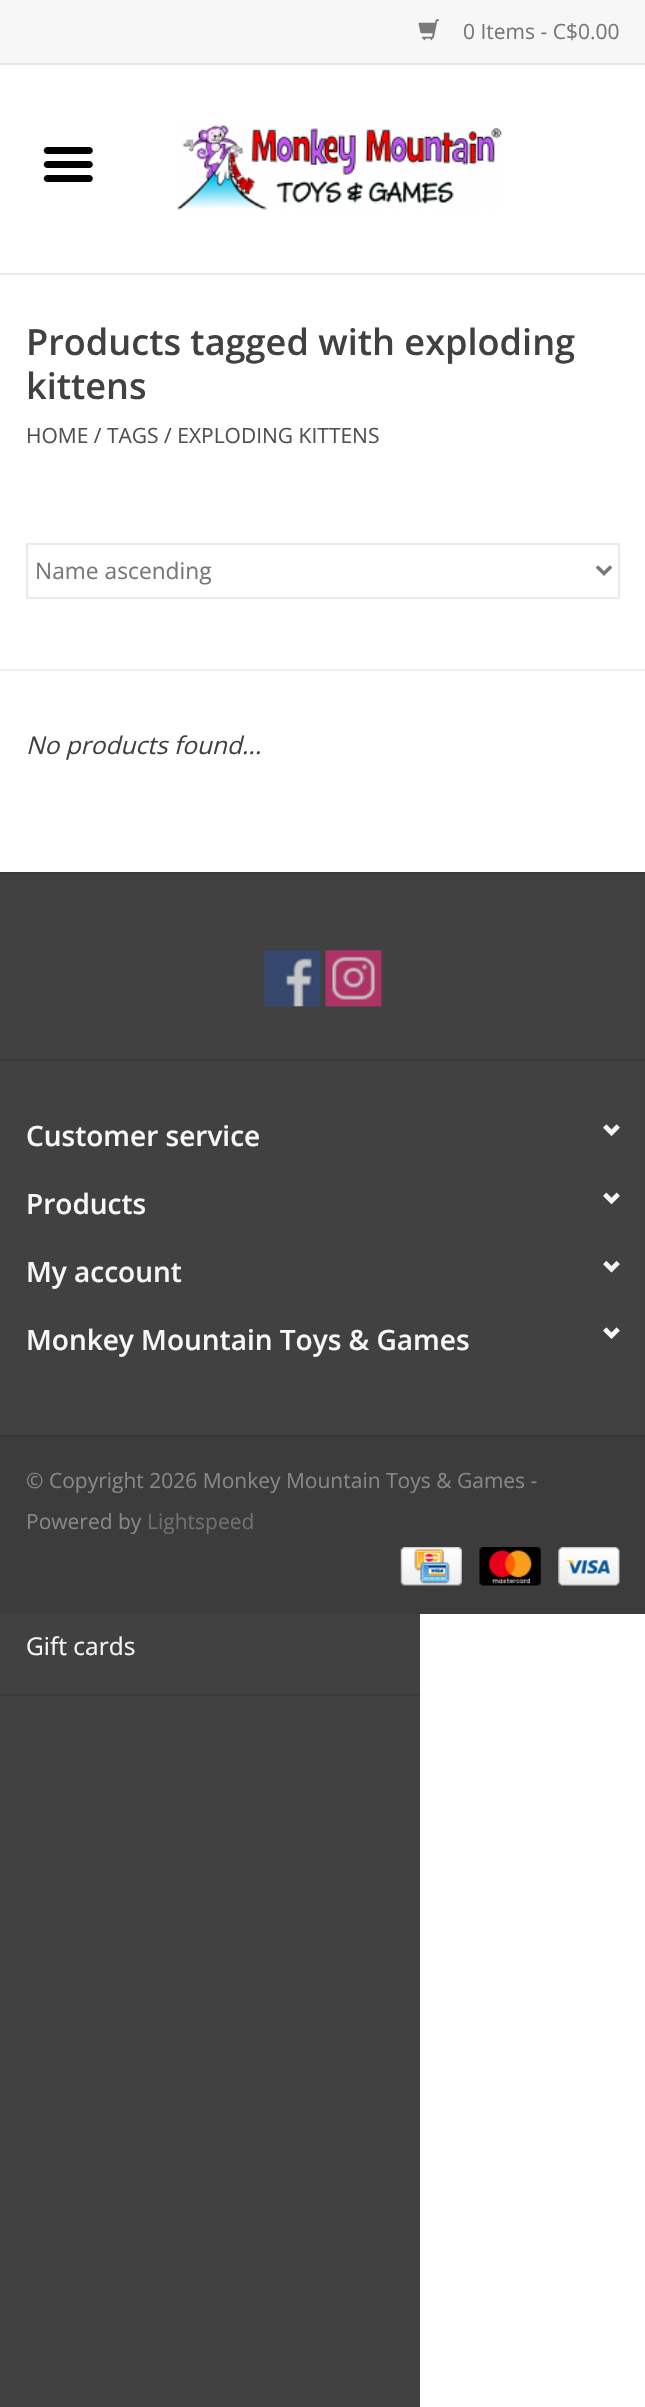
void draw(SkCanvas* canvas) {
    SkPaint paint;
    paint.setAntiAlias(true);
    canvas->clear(0xFFFFFFFF);
    paint.setColor(0xFFF7F7F7);
    canvas->drawRect(SkRect::MakeXYWH(0, 0, 645, 63), paint);
    paint.setColor(0xFFE5E5E5);
    canvas->drawRect(SkRect::MakeXYWH(0, 63, 645, 2), paint);
    canvas->drawImageRect(SkImages::DeferredFromEncodedData(SkData::MakeFromFileName("img1.png")), SkRect::MakeXYWH(418, 19, 22, 22), SkSamplingOptions());
    SkFont font1(fontMgr->matchFamilyStyle("Open Sans", SkFontStyle::Normal()), 21);
    font1.setSubpixel(true);
    paint.setColor(0xFF777777);
    canvas->drawString("0 Items - C$0.00", 463, 39, font1, paint);
    paint.setColor(0xFFEAEAEA);
    canvas->drawRect(SkRect::MakeXYWH(0, 273, 645, 2), paint);
    canvas->drawImageRect(SkImages::DeferredFromEncodedData(SkData::MakeFromFileName("img2.png")), SkRect::MakeXYWH(176, 125, 326, 85), SkSamplingOptions());
    canvas->drawImageRect(SkImages::DeferredFromEncodedData(SkData::MakeFromFileName("img3.png")), SkRect::MakeXYWH(43, 147, 50, 35), SkSamplingOptions());
    paint.setColor(0xFF414141);
    canvas->drawRect(SkRect::MakeXYWH(0, 1614, 420, 793), paint);
    paint.setColor(0xFF3B3B3B);
    canvas->drawRect(SkRect::MakeXYWH(0, 1694, 420, 2), paint);
    SkFont font2(fontMgr->matchFamilyStyle("Open Sans", SkFontStyle::Normal()), 24.5f);
    font2.setSubpixel(true);
    paint.setColor(0xFFF7F7F7);
    canvas->drawString("Gift cards", 26, 1655, font2, paint);
    SkFont font3(fontMgr->matchFamilyStyle("Open Sans", SkFontStyle(600, SkFontStyle::kNormal_Width, SkFontStyle::kUpright_Slant)), 36.1f);
    font3.setSubpixel(true);
    paint.setColor(0xFF414141);
    canvas->drawString("Products tagged with exploding", 26, 355, font3, paint);
    canvas->drawString("kittens", 26, 399, font3, paint);
    paint.setColor(0xFF505050);
    canvas->drawString("HOME / TAGS / EXPLODING KITTENS", 26, 443, font1, paint);
    paint.setColor(0xFFF0F0F0);
    canvas->drawRect(SkRect::MakeXYWH(0, 669, 645, 2), paint);
    paint.setStyle(SkPaint::kStroke_Style);
    paint.setStrokeWidth(2);
    paint.setColor(0xFFEAEAEA);
    canvas->drawRect(SkRect::MakeXYWH(27, 544, 592, 54), paint);
    paint.setStrokeWidth(3.5f);
    paint.setColor(0xFF777777);
    canvas->drawPath(SkPathBuilder().moveTo(597, 566.5f).lineTo(604, 573.5f).lineTo(611, 566.5f).detach(), paint);
    SkFont font4(fontMgr->matchFamilyStyle("Open Sans", SkFontStyle::Normal()), 22.75f);
    font4.setSubpixel(true);
    paint.setStyle(SkPaint::kFill_Style);
    canvas->drawString("Name ascending", 35, 579, font4, paint);
    SkFont font5(fontMgr->matchFamilyStyle("Open Sans", SkFontStyle::Italic()), 24.5f);
    font5.setSubpixel(true);
    paint.setColor(0xFF414141);
    canvas->drawString("No products found...", 26, 754, font5, paint);
    canvas->drawRect(SkRect::MakeXYWH(0, 874, 645, 561), paint);
    paint.setColor(0xFF3B3B3B);
    canvas->drawRect(SkRect::MakeXYWH(0, 872, 645, 2), paint);
    canvas->drawImageRect(SkImages::DeferredFromEncodedData(SkData::MakeFromFileName("img4.png")), SkRect::MakeXYWH(264, 950, 57, 57), SkSamplingOptions());
    canvas->drawImageRect(SkImages::DeferredFromEncodedData(SkData::MakeFromFileName("img5.png")), SkRect::MakeXYWH(325, 950, 57, 57), SkSamplingOptions());
    canvas->drawRect(SkRect::MakeXYWH(0, 1059, 645, 2), paint);
    SkFont font6(fontMgr->matchFamilyStyle("Open Sans", SkFontStyle(600, SkFontStyle::kNormal_Width, SkFontStyle::kUpright_Slant)), 28);
    font6.setSubpixel(true);
    paint.setColor(0xFFF7F7F7);
    canvas->drawString("Customer service", 26, 1146, font6, paint);
    canvas->drawImageRect(SkImages::DeferredFromEncodedData(SkData::MakeFromFileName("img6.png")), SkRect::MakeXYWH(603, 1124, 17, 12), SkSamplingOptions());
    canvas->drawString("Products", 26, 1214, font6, paint);
    canvas->drawImageRect(SkImages::DeferredFromEncodedData(SkData::MakeFromFileName("img7.png")), SkRect::MakeXYWH(603, 1192, 17, 13), SkSamplingOptions());
    canvas->drawString("My account", 26, 1282, font6, paint);
    canvas->drawImageRect(SkImages::DeferredFromEncodedData(SkData::MakeFromFileName("img8.png")), SkRect::MakeXYWH(603, 1260, 17, 13), SkSamplingOptions());
    canvas->drawString("Monkey Mountain Toys & Games", 26, 1350, font6, paint);
    canvas->drawImageRect(SkImages::DeferredFromEncodedData(SkData::MakeFromFileName("img6.png")), SkRect::MakeXYWH(603, 1327, 17, 12), SkSamplingOptions());
    paint.setColor(0xFF373737);
    canvas->drawRect(SkRect::MakeXYWH(0, 1435, 645, 2), paint);
    paint.setColor(0xFF3C3C3C);
    canvas->drawRect(SkRect::MakeXYWH(0, 1437, 645, 177), paint);
    paint.setColor(0xFF878787);
    canvas->drawString("© Copyright 2026 Monkey Mountain Toys & Games -", 26, 1488, font1, paint);
    canvas->drawString("Powered by", 26, 1529, font1, paint);
    paint.setColor(0xFF707070);
    canvas->drawString("Lightspeed", 147, 1529, font1, paint);
    canvas->drawImageRect(SkImages::DeferredFromEncodedData(SkData::MakeFromFileName("img9.png")), SkRect::MakeXYWH(400, 1547, 62, 39), SkSamplingOptions());
    canvas->drawImageRect(SkImages::DeferredFromEncodedData(SkData::MakeFromFileName("img10.png")), SkRect::MakeXYWH(479, 1547, 62, 39), SkSamplingOptions());
    canvas->drawImageRect(SkImages::DeferredFromEncodedData(SkData::MakeFromFileName("img11.png")), SkRect::MakeXYWH(558, 1547, 62, 39), SkSamplingOptions());
}
